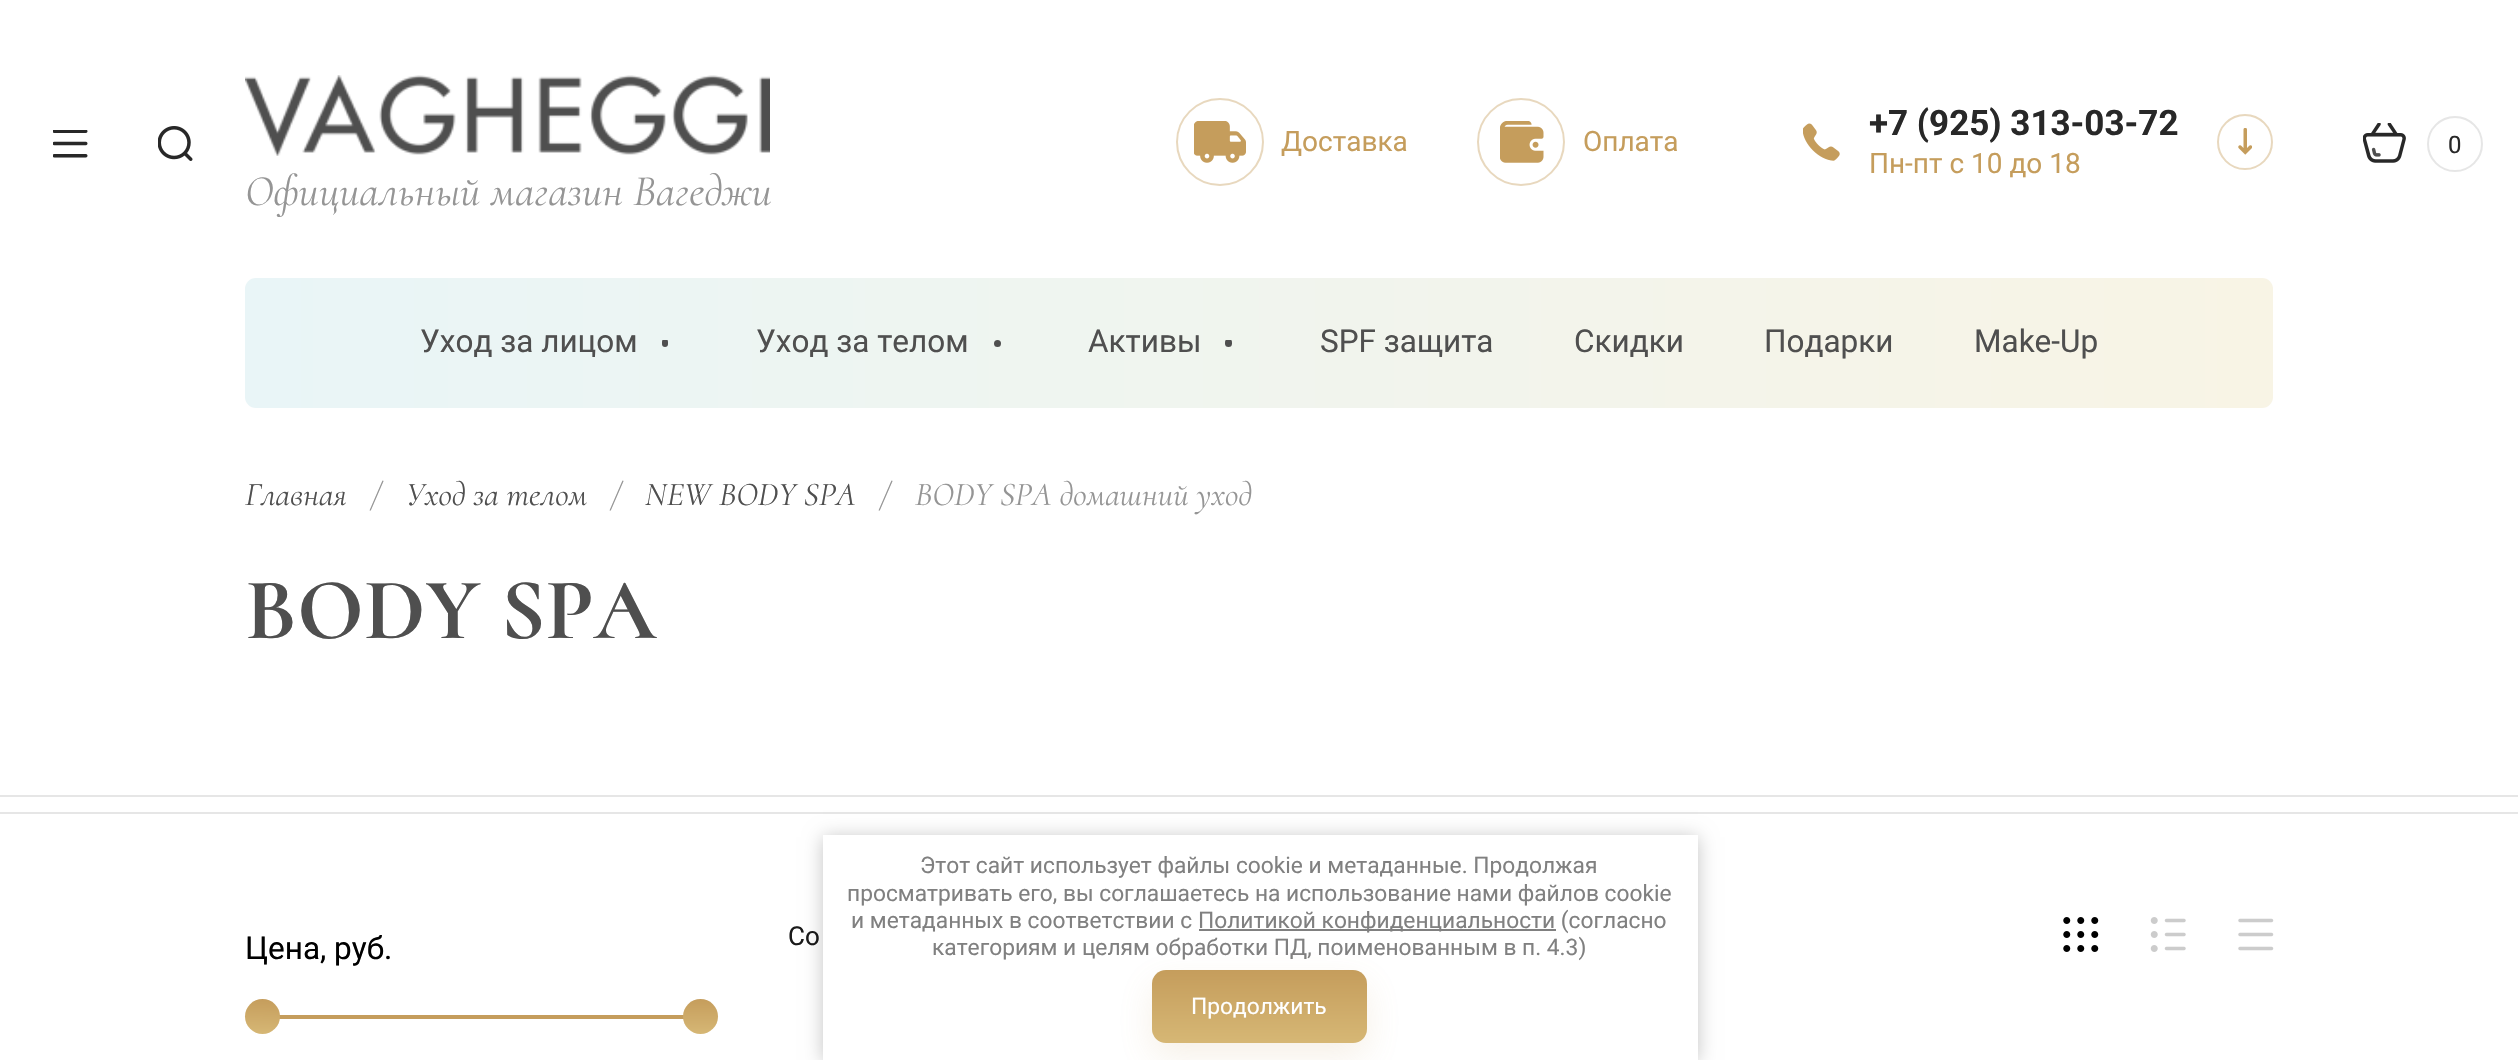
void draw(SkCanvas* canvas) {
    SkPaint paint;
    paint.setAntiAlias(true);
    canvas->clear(0xFFFFFFFF);
    paint.setStyle(SkPaint::kStroke_Style);
    paint.setStrokeWidth(2);
    paint.setColor(0xFFE8D8BE);
    canvas->drawCircle(1220, 142, 43, paint);
    canvas->drawImageRect(SkImages::DeferredFromEncodedData(SkData::MakeFromFileName("img1.png")), SkRect::MakeXYWH(1194, 121, 52, 42), SkSamplingOptions());
    SkFont font1(fontMgr->matchFamilyStyle("Roboto", SkFontStyle::Normal()), 28);
    font1.setSubpixel(true);
    paint.setStyle(SkPaint::kFill_Style);
    paint.setColor(0xFFC59D5C);
    canvas->drawString("Доставка", 1281, 151, font1, paint);
    paint.setStyle(SkPaint::kStroke_Style);
    paint.setColor(0xFFE8D8BE);
    canvas->drawCircle(1521, 142, 43, paint);
    canvas->drawImageRect(SkImages::DeferredFromEncodedData(SkData::MakeFromFileName("img2.png")), SkRect::MakeXYWH(1500, 121, 44, 42), SkSamplingOptions());
    paint.setStyle(SkPaint::kFill_Style);
    paint.setColor(0xFFC59D5C);
    canvas->drawString("Оплата", 1583, 151, font1, paint);
    canvas->drawImageRect(SkImages::DeferredFromEncodedData(SkData::MakeFromFileName("img3.png")), SkRect::MakeXYWH(1803, 123, 37, 38), SkSamplingOptions());
    SkFont font2(fontMgr->matchFamilyStyle("Roboto", SkFontStyle::Bold()), 35);
    font2.setSubpixel(true);
    paint.setColor(0xFF282828);
    canvas->drawString("+7 (925) 313-03-72", 1869, 135, font2, paint);
    paint.setColor(0xFFC59D5C);
    canvas->drawString("Пн-пт с 10 до 18", 1869, 173, font1, paint);
    canvas->drawImageRect(SkImages::DeferredFromEncodedData(SkData::MakeFromFileName("img4.png")), SkRect::MakeXYWH(2238, 128, 14, 27), SkSamplingOptions());
    paint.setStyle(SkPaint::kStroke_Style);
    paint.setColor(0xFFE8D8BE);
    canvas->drawCircle(2245, 142, 27, paint);
    canvas->drawImageRect(SkImages::DeferredFromEncodedData(SkData::MakeFromFileName("img5.png")), SkRect::MakeXYWH(53, 130, 35, 28), SkSamplingOptions());
    canvas->drawImageRect(SkImages::DeferredFromEncodedData(SkData::MakeFromFileName("img6.png")), SkRect::MakeXYWH(158, 126, 35, 35), SkSamplingOptions());
    canvas->drawImageRect(SkImages::DeferredFromEncodedData(SkData::MakeFromFileName("img7.png")), SkRect::MakeXYWH(2363, 123, 43, 40), SkSamplingOptions());
    paint.setColor(0xFFE6E6E6);
    canvas->drawCircle(2455, 144, 27, paint);
    SkFont font3(fontMgr->matchFamilyStyle("Roboto", SkFontStyle::Normal()), 24);
    font3.setSubpixel(true);
    paint.setStyle(SkPaint::kFill_Style);
    paint.setColor(0xFF282828);
    canvas->drawString("0", 2448, 153, font3, paint);
    canvas->drawImageRect(SkImages::DeferredFromEncodedData(SkData::MakeFromFileName("img8.png")), SkRect::MakeXYWH(245, 75, 525, 81), SkSamplingOptions());
    SkFont font4(fontMgr->matchFamilyStyle("Cormorant", SkFontStyle::Italic()), 43.75f);
    font4.setSubpixel(true);
    paint.setColor(0xFF959595);
    canvas->drawString("Официальный магазин Вагеджи", 245, 205, font4, paint);
    {
        const SkColor colors[] = {0xFFE9F5F7, 0xFFF8F4E5};
        const float stops[] = {0, 1};
        const SkPoint ends[] = {{245, 343}, {2273, 343}};
        paint.setShader(SkGradientShader::MakeLinear(ends, colors, stops, 2, SkTileMode::kClamp));
        paint.setAlpha(255);
    }
    canvas->drawRoundRect(SkRect::MakeXYWH(245, 278, 2028, 130), 11, 11, paint);
    SkFont font5(fontMgr->matchFamilyStyle("Roboto", SkFontStyle::Normal()), 31.5f);
    font5.setSubpixel(true);
    paint.setShader(nullptr);
    paint.setColor(0xFF4F4F4F);
    canvas->drawString("Уход за лицом", 420, 352, font5, paint);
    canvas->save();
    canvas->clipRect(SkRect::MakeXYWH(662, 340, 7, 7));
    canvas->drawRoundRect(SkRect::MakeXYWH(662, 339, 6, 8), 3, 3, paint);
    canvas->restore();
    canvas->drawString("Уход за телом", 756, 352, font5, paint);
    canvas->drawCircle(997.5f, 343.5f, 3.5f, paint);
    canvas->drawString("Активы", 1088, 352, font5, paint);
    canvas->save();
    canvas->clipRect(SkRect::MakeXYWH(1225, 340, 7, 7));
    canvas->drawRoundRect(SkRect::MakeXYWH(1225, 339, 7, 8), 3.5f, 3.5f, paint);
    canvas->restore();
    canvas->drawString("SPF защита", 1320, 352, font5, paint);
    canvas->drawString("Скидки", 1574, 352, font5, paint);
    canvas->drawString("Подарки", 1764, 352, font5, paint);
    canvas->drawString("Make-Up", 1974, 352, font5, paint);
    SkFont font6(fontMgr->matchFamilyStyle("Cormorant", SkFontStyle::Italic()), 33.25f);
    font6.setSubpixel(true);
    canvas->drawString("Главная", 245, 505, font6, paint);
    paint.setColor(0xFF959595);
    canvas->drawString("/", 371, 505, font6, paint);
    paint.setColor(0xFF4F4F4F);
    canvas->drawString("Уход за телом", 406, 505, font6, paint);
    paint.setColor(0xFF959595);
    canvas->drawString("/", 611, 505, font6, paint);
    paint.setColor(0xFF4F4F4F);
    canvas->drawString("NEW BODY SPA", 645, 505, font6, paint);
    paint.setColor(0xFF959595);
    canvas->drawString("/", 880, 505, font6, paint);
    canvas->drawString("BODY SPA домашний уход", 915, 505, font6, paint);
    SkFont font7(fontMgr->matchFamilyStyle("Cormorant", SkFontStyle::Bold()), 87.5f);
    font7.setSubpixel(true);
    paint.setColor(0xFF4F4F4F);
    canvas->drawString("BODY SPA", 245, 638, font7, paint);
    paint.setColor(0xFFE6E6E6);
    canvas->drawRect(SkRect::MakeXYWH(0, 795, 2518, 2), paint);
    canvas->drawRect(SkRect::MakeXYWH(0, 812, 2518, 2), paint);
    paint.setColor(0xFF000000);
    canvas->drawString("Цена, руб.", 245, 959, font5, paint);
    paint.setColor(0xFFC59D5C);
    canvas->drawRect(SkRect::MakeXYWH(279, 1015, 405, 4), paint);
    {
        const SkColor colors[] = {0xFFC59D5C, 0xFFD6B775};
        const float stops[] = {0, 1};
        const SkPoint ends[] = {{263, 999}, {262, 1034}};
        paint.setShader(SkGradientShader::MakeLinear(ends, colors, stops, 2, SkTileMode::kClamp));
        paint.setAlpha(255);
    }
    canvas->drawCircle(262.5f, 1016.5f, 17.5f, paint);
    {
        const SkColor colors[] = {0xFFC59D5C, 0xFFD6B775};
        const float stops[] = {0, 1};
        const SkPoint ends[] = {{700, 999}, {700, 1034}};
        paint.setShader(SkGradientShader::MakeLinear(ends, colors, stops, 2, SkTileMode::kClamp));
        paint.setAlpha(255);
    }
    canvas->drawCircle(700.5f, 1016.5f, 17.5f, paint);
    SkFont font8(fontMgr->matchFamilyStyle("Roboto", SkFontStyle::Normal()), 26);
    font8.setSubpixel(true);
    paint.setShader(nullptr);
    paint.setColor(0xFF1A1A1A);
    canvas->drawString("Со", 788, 945, font8, paint);
    canvas->drawImageRect(SkImages::DeferredFromEncodedData(SkData::MakeFromFileName("img9.png")), SkRect::MakeXYWH(2063, 917, 36, 35), SkSamplingOptions());
    canvas->drawImageRect(SkImages::DeferredFromEncodedData(SkData::MakeFromFileName("img10.png")), SkRect::MakeXYWH(2150, 917, 36, 35), SkSamplingOptions());
    canvas->drawImageRect(SkImages::DeferredFromEncodedData(SkData::MakeFromFileName("img11.png")), SkRect::MakeXYWH(2238, 918, 36, 33), SkSamplingOptions());
    paint.setColor(0x3B000000);
    paint.setMaskFilter(SkMaskFilter::MakeBlur(kNormal_SkBlurStyle, 9));
    canvas->drawRect(SkRect::MakeXYWH(823, 837, 875, 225), paint);
    paint.setMaskFilter(nullptr);
    paint.setColor(0xFFFFFFFF);
    canvas->drawRect(SkRect::MakeXYWH(823, 835, 875, 225), paint);
    SkFont font9(fontMgr->matchFamilyStyle("Roboto", SkFontStyle::Normal()), 22.75f);
    font9.setSubpixel(true);
    paint.setColor(0xFF808080);
    canvas->drawString("Этот сайт использует файлы cookie и метаданные. Продолжая", 920, 873, font9, paint);
    canvas->drawString("просматривать его, вы соглашаетесь на использование нами файлов cookie", 847, 901, font9, paint);
    canvas->drawString("и метаданных в соответствии с", 851, 928, font9, paint);
    canvas->drawRect(SkRect::MakeXYWH(1199, 929, 357, 2), paint);
    canvas->drawString("Политикой конфиденциальности (согласно", 1198, 928, font9, paint);
    canvas->drawString("категориям и целям обработки ПД, поименованным в п. 4.3)", 932, 955, font9, paint);
    paint.setColor(0x26C59D5C);
    paint.setMaskFilter(SkMaskFilter::MakeBlur(kNormal_SkBlurStyle, 17.5f));
    canvas->drawRoundRect(SkRect::MakeXYWH(1152, 984, 215, 73), 14, 14, paint);
    paint.setMaskFilter(nullptr);
    {
        const SkColor colors[] = {0xFFC59D5C, 0xFFD6B775};
        const float stops[] = {0, 1};
        const SkPoint ends[] = {{1259, 970}, {1259, 1043}};
        paint.setShader(SkGradientShader::MakeLinear(ends, colors, stops, 2, SkTileMode::kClamp));
        paint.setAlpha(255);
    }
    canvas->drawRoundRect(SkRect::MakeXYWH(1152, 970, 215, 73), 14, 14, paint);
    paint.setShader(nullptr);
    paint.setColor(0xFFFFFFFF);
    canvas->drawString("Продолжить", 1191, 1014, font9, paint);
}
